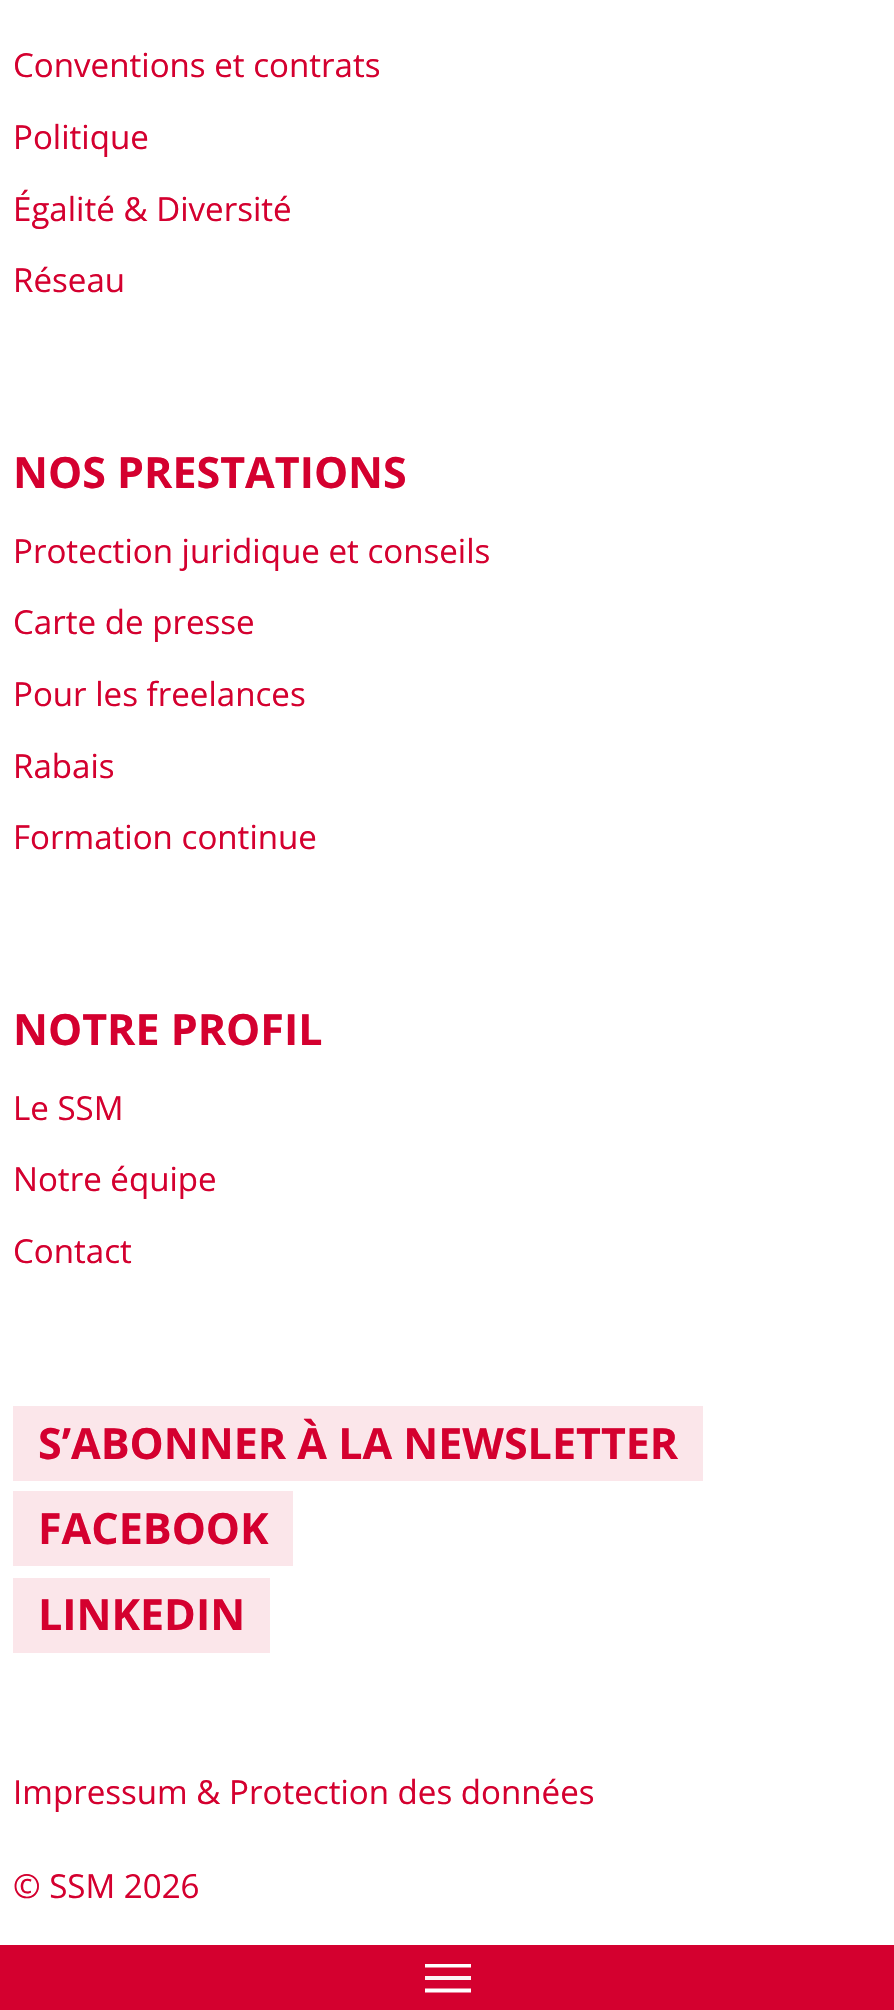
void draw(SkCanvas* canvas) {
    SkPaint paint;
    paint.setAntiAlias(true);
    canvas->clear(0xFFFFFFFF);
    SkFont font1(fontMgr->matchFamilyStyle("Open Sans", SkFontStyle::Normal()), 33.1f);
    font1.setSubpixel(true);
    paint.setColor(0xFFD4002F);
    canvas->drawString("Conventions et contrats", 13, 77, font1, paint);
    canvas->drawString("Politique", 13, 149, font1, paint);
    canvas->drawString("Égalité & Diversité", 13, 221, font1, paint);
    canvas->drawString("Réseau", 13, 292, font1, paint);
    SkFont font2(fontMgr->matchFamilyStyle("Open Sans", SkFontStyle::Bold()), 43);
    font2.setSubpixel(true);
    canvas->drawString("NOS PRESTATIONS", 13, 488, font2, paint);
    canvas->drawString("Protection juridique et conseils", 13, 563, font1, paint);
    canvas->drawString("Carte de presse", 13, 634, font1, paint);
    canvas->drawString("Pour les freelances", 13, 706, font1, paint);
    canvas->drawString("Rabais", 13, 778, font1, paint);
    canvas->drawString("Formation continue", 13, 849, font1, paint);
    canvas->drawString("NOTRE PROFIL", 13, 1045, font2, paint);
    canvas->drawString("Le SSM", 13, 1120, font1, paint);
    canvas->drawString("Notre équipe", 13, 1191, font1, paint);
    canvas->drawString("Contact", 13, 1263, font1, paint);
    paint.setColor(0xFFFBE6EA);
    canvas->drawRect(SkRect::MakeXYWH(13, 1406, 690, 75), paint);
    paint.setColor(0xFFD4002F);
    canvas->drawString("S’ABONNER À LA NEWSLETTER", 38, 1459, font2, paint);
    paint.setColor(0xFFFBE6EA);
    canvas->drawRect(SkRect::MakeXYWH(13, 1491, 280, 75), paint);
    paint.setColor(0xFFD4002F);
    canvas->drawString("FACEBOOK", 38, 1544, font2, paint);
    paint.setColor(0xFFFBE6EA);
    canvas->drawRect(SkRect::MakeXYWH(13, 1578, 257, 75), paint);
    paint.setColor(0xFFD4002F);
    canvas->drawString("LINKEDIN", 38, 1630, font2, paint);
    canvas->drawString("Impressum & Protection des données", 13, 1804, font1, paint);
    canvas->drawString("© SSM 2026", 13, 1898, font1, paint);
    canvas->drawRect(SkRect::MakeXYWH(0, 1945, 894, 65), paint);
    canvas->save();
    canvas->clipRect(SkRect::MakeXYWH(425, 1964, 46, 29));
    paint.setStyle(SkPaint::kStroke_Style);
    paint.setStrokeWidth(3.8f);
    paint.setColor(0xFFFFFFFF);
    canvas->drawPath(SkPathBuilder().moveTo(425, 1965.5f).lineTo(471, 1965.5f).detach(), paint);
    canvas->restore();
    paint.setStyle(SkPaint::kFill_Style);
    paint.setColor(0xFFFDF2F5);
    canvas->drawRect(SkRect::MakeXYWH(425, 1976, 46, 4), paint);
    paint.setStyle(SkPaint::kStroke_Style);
    paint.setColor(0xFFFFFFFF);
    canvas->drawPath(SkPathBuilder().moveTo(425, 1990.5f).lineTo(471, 1990.5f).detach(), paint);
}
